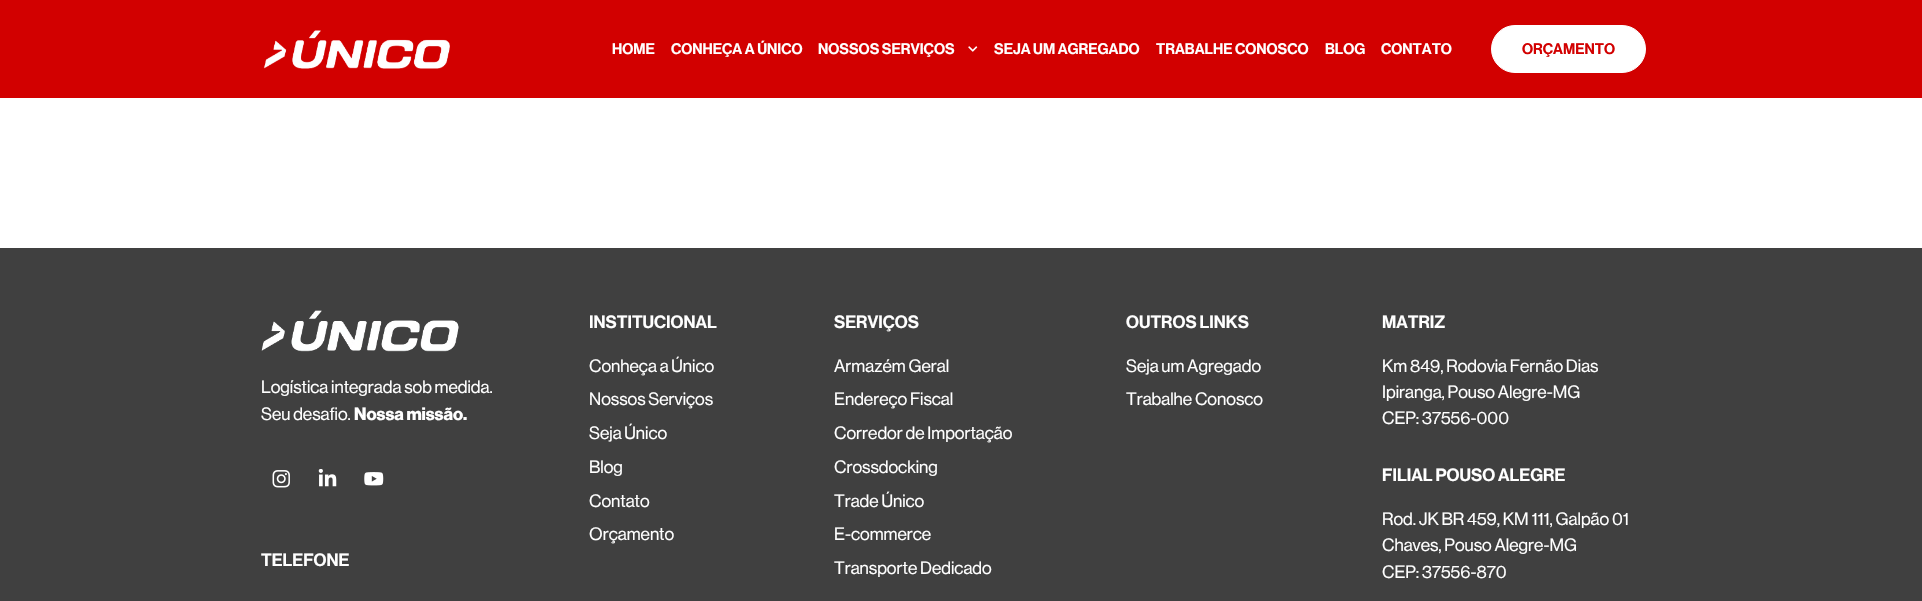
void draw(SkCanvas* canvas) {
    SkPaint paint;
    paint.setAntiAlias(true);
    canvas->clear(0xFFFFFFFF);
    paint.setColor(0xFFD20000);
    canvas->drawRect(SkRect::MakeXYWH(0, 0, 1922, 98), paint);
    canvas->drawImageRect(SkImages::DeferredFromEncodedData(SkData::MakeFromFileName("img1.png")), SkRect::MakeXYWH(263, 30, 187, 39), SkSamplingOptions());
    SkFont font1(fontMgr->matchFamilyStyle("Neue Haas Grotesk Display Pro", SkFontStyle(600, SkFontStyle::kNormal_Width, SkFontStyle::kUpright_Slant)), 15);
    font1.setSubpixel(true);
    paint.setColor(0xFFFFFFFF);
    canvas->drawString("HOME", 612, 54, font1, paint);
    canvas->drawString("CONHEÇA A ÚNICO", 671, 54, font1, paint);
    canvas->drawString("NOSSOS SERVIÇOS", 818, 54, font1, paint);
    canvas->drawImageRect(SkImages::DeferredFromEncodedData(SkData::MakeFromFileName("img2.png")), SkRect::MakeXYWH(968, 46, 10, 6), SkSamplingOptions());
    canvas->drawString("SEJA UM AGREGADO", 994, 54, font1, paint);
    canvas->drawString("TRABALHE CONOSCO", 1156, 54, font1, paint);
    canvas->drawString("BLOG", 1325, 54, font1, paint);
    canvas->drawString("CONTATO", 1381, 54, font1, paint);
    canvas->drawRoundRect(SkRect::MakeXYWH(1491.5f, 25.5f, 154, 47), 23.5f, 23.5f, paint);
    paint.setStyle(SkPaint::kStroke_Style);
    paint.setStrokeWidth(1);
    canvas->drawRoundRect(SkRect::MakeXYWH(1491.5f, 25.5f, 154, 47), 23.5f, 23.5f, paint);
    paint.setStyle(SkPaint::kFill_Style);
    paint.setColor(0xFFD20000);
    canvas->drawString("ORÇAMENTO", 1522, 54, font1, paint);
    paint.setColor(0xFF404040);
    canvas->drawRect(SkRect::MakeXYWH(0, 248, 1922, 353), paint);
    canvas->drawImageRect(SkImages::DeferredFromEncodedData(SkData::MakeFromFileName("img3.png")), SkRect::MakeXYWH(261, 310, 198, 42), SkSamplingOptions());
    SkFont font2(fontMgr->matchFamilyStyle("Neue Haas Grotesk Display Pro", SkFontStyle::Normal()), 17.5f);
    font2.setSubpixel(true);
    paint.setColor(0xFFFFFFFF);
    canvas->drawString("Logística integrada sob medida.", 261, 393, font2, paint);
    canvas->drawString("Seu desafio.", 261, 420, font2, paint);
    SkFont font3(fontMgr->matchFamilyStyle("Neue Haas Grotesk Display Pro", SkFontStyle::Bold()), 17.5f);
    font3.setSubpixel(true);
    canvas->drawString("Nossa missão.", 354, 420, font3, paint);
    canvas->drawImageRect(SkImages::DeferredFromEncodedData(SkData::MakeFromFileName("img4.png")), SkRect::MakeXYWH(272, 470, 18, 18), SkSamplingOptions());
    canvas->drawImageRect(SkImages::DeferredFromEncodedData(SkData::MakeFromFileName("img5.png")), SkRect::MakeXYWH(318, 469, 19, 18), SkSamplingOptions());
    canvas->drawImageRect(SkImages::DeferredFromEncodedData(SkData::MakeFromFileName("img6.png")), SkRect::MakeXYWH(364, 472, 20, 14), SkSamplingOptions());
    SkFont font4(fontMgr->matchFamilyStyle("Neue Haas Grotesk Display Pro", SkFontStyle(600, SkFontStyle::kNormal_Width, SkFontStyle::kUpright_Slant)), 17.5f);
    font4.setSubpixel(true);
    canvas->drawString("TELEFONE", 261, 566, font4, paint);
    canvas->drawString("INSTITUCIONAL", 589, 328, font4, paint);
    canvas->drawString("Conheça a Único", 589, 372, font2, paint);
    canvas->drawString("Nossos Serviços", 589, 405, font2, paint);
    canvas->drawString("Seja Único", 589, 439, font2, paint);
    canvas->drawString("Blog", 589, 473, font2, paint);
    canvas->drawString("Contato", 589, 507, font2, paint);
    canvas->drawString("Orçamento", 589, 540, font2, paint);
    canvas->drawString("SERVIÇOS", 834, 328, font4, paint);
    canvas->drawString("Armazém Geral", 834, 372, font2, paint);
    canvas->drawString("Endereço Fiscal", 834, 405, font2, paint);
    canvas->drawString("Corredor de Importação", 834, 439, font2, paint);
    canvas->drawString("Crossdocking", 834, 473, font2, paint);
    canvas->drawString("Trade Único", 834, 507, font2, paint);
    canvas->drawString("E-commerce", 834, 540, font2, paint);
    canvas->drawString("Transporte Dedicado", 834, 574, font2, paint);
    canvas->drawString("OUTROS LINKS", 1126, 328, font4, paint);
    canvas->drawString("Seja um Agregado", 1126, 372, font2, paint);
    canvas->drawString("Trabalhe Conosco", 1126, 405, font2, paint);
    canvas->drawString("MATRIZ", 1382, 328, font4, paint);
    canvas->drawString("Km 849, Rodovia Fernão Dias", 1382, 372, font2, paint);
    canvas->drawString("Ipiranga, Pouso Alegre-MG", 1382, 398, font2, paint);
    canvas->drawString("CEP: 37556-000", 1382, 424, font2, paint);
    canvas->drawString("FILIAL POUSO ALEGRE", 1382, 481, font4, paint);
    canvas->drawString("Rod. JK BR 459, KM 111, Galpão 01", 1382, 525, font2, paint);
    canvas->drawString("Chaves, Pouso Alegre-MG", 1382, 551, font2, paint);
    canvas->drawString("CEP: 37556-870", 1382, 578, font2, paint);
}
